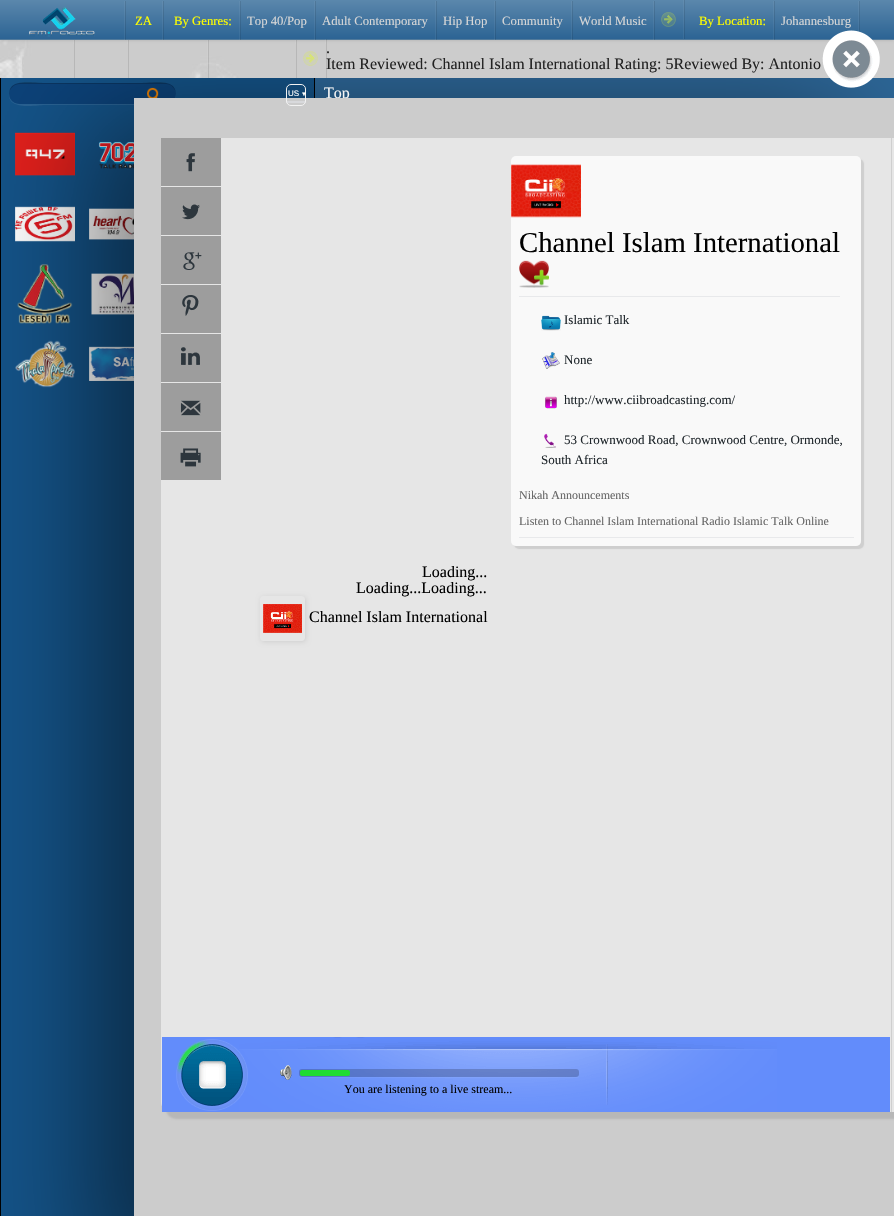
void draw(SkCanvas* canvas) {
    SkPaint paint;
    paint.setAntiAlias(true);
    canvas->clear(0xFFFFFFFF);
    canvas->drawImageRect(SkImages::DeferredFromEncodedData(SkData::MakeFromFileName("img1.png")), SkRect::MakeXYWH(0, 40, 894, 38), SkSamplingOptions());
    paint.setColor(0x26000000);
    paint.setMaskFilter(SkMaskFilter::MakeBlur(kNormal_SkBlurStyle, 1.5f));
    canvas->drawRect(SkRect::MakeXYWH(0, 0, 894, 40), paint);
    paint.setMaskFilter(nullptr);
    {
        const SkColor colors[] = {0xFF5B87AC, 0xFF2C6494};
        const float stops[] = {0, 1};
        const SkPoint ends[] = {{447, 0}, {447, 39}};
        paint.setShader(SkGradientShader::MakeLinear(ends, colors, stops, 2, SkTileMode::kClamp));
        paint.setAlpha(255);
    }
    canvas->drawRect(SkRect::MakeXYWH(0, 0, 894, 39), paint);
    paint.setShader(nullptr);
    paint.setColor(0xFF517A9B);
    canvas->drawRect(SkRect::MakeXYWH(0, 39, 894, 1), paint);
    paint.setColor(0x1A000000);
    canvas->drawRect(SkRect::MakeXYWH(125, 1, 1, 39), paint);
    paint.setColor(0x0DFFFFFF);
    canvas->drawRect(SkRect::MakeXYWH(124, 1, 1, 39), paint);
    canvas->drawImageRect(SkImages::DeferredFromEncodedData(SkData::MakeFromFileName("img2.png")), SkRect::MakeXYWH(29, 7, 66, 30), SkSamplingOptions());
    paint.setColor(0x1A000000);
    canvas->drawRect(SkRect::MakeXYWH(163, 1, 1, 39), paint);
    paint.setColor(0x0DFFFFFF);
    canvas->drawRect(SkRect::MakeXYWH(162, 1, 1, 39), paint);
    SkFont font1(fontMgr->matchFamilyStyle("Liberation Serif", SkFontStyle::Normal()), 12.75f);
    font1.setSubpixel(true);
    paint.setColor(0xFFFFFF00);
    canvas->drawString("ZA", 135, 25, font1, paint);
    paint.setColor(0x1A000000);
    canvas->drawRect(SkRect::MakeXYWH(240, 1, 1, 39), paint);
    paint.setColor(0x0DFFFFFF);
    canvas->drawRect(SkRect::MakeXYWH(239, 1, 1, 39), paint);
    paint.setColor(0xFFFFFF00);
    canvas->drawString("By Genres:", 174, 25, font1, paint);
    paint.setColor(0x1A000000);
    canvas->drawRect(SkRect::MakeXYWH(315, 1, 1, 39), paint);
    paint.setColor(0x0DFFFFFF);
    canvas->drawRect(SkRect::MakeXYWH(314, 1, 1, 39), paint);
    paint.setColor(0xFFD7D7D7);
    canvas->drawString("Top 40/Pop", 247, 25, font1, paint);
    paint.setColor(0x1A000000);
    canvas->drawRect(SkRect::MakeXYWH(436, 1, 1, 39), paint);
    paint.setColor(0x0DFFFFFF);
    canvas->drawRect(SkRect::MakeXYWH(435, 1, 1, 39), paint);
    paint.setColor(0xFFD7D7D7);
    canvas->drawString("Adult Contemporary", 322, 25, font1, paint);
    paint.setColor(0x1A000000);
    canvas->drawRect(SkRect::MakeXYWH(495, 1, 1, 39), paint);
    paint.setColor(0x0DFFFFFF);
    canvas->drawRect(SkRect::MakeXYWH(494, 1, 1, 39), paint);
    paint.setColor(0xFFD7D7D7);
    canvas->drawString("Hip Hop", 443, 25, font1, paint);
    paint.setColor(0x1A000000);
    canvas->drawRect(SkRect::MakeXYWH(572, 1, 1, 39), paint);
    paint.setColor(0x0DFFFFFF);
    canvas->drawRect(SkRect::MakeXYWH(571, 1, 1, 39), paint);
    paint.setColor(0xFFD7D7D7);
    canvas->drawString("Community", 502, 25, font1, paint);
    paint.setColor(0x1A000000);
    canvas->drawRect(SkRect::MakeXYWH(654, 1, 1, 39), paint);
    paint.setColor(0x0DFFFFFF);
    canvas->drawRect(SkRect::MakeXYWH(653, 1, 1, 39), paint);
    paint.setColor(0xFFD7D7D7);
    canvas->drawString("World Music", 579, 25, font1, paint);
    paint.setColor(0x1A000000);
    canvas->drawRect(SkRect::MakeXYWH(684, 0, 1, 39), paint);
    canvas->drawImageRect(SkImages::DeferredFromEncodedData(SkData::MakeFromFileName("img3.png")), SkRect::MakeXYWH(661, 12, 15, 15), SkSamplingOptions());
    paint.setColor(0x0DFFFFFF);
    canvas->drawRect(SkRect::MakeXYWH(683, 0, 1, 39), paint);
    paint.setColor(0x1A000000);
    canvas->drawRect(SkRect::MakeXYWH(774, 1, 1, 39), paint);
    paint.setColor(0x0DFFFFFF);
    canvas->drawRect(SkRect::MakeXYWH(773, 1, 1, 39), paint);
    paint.setColor(0xFFFFFF00);
    canvas->drawString("By Location:", 699, 25, font1, paint);
    paint.setColor(0x1A000000);
    canvas->drawRect(SkRect::MakeXYWH(859, 1, 1, 39), paint);
    paint.setColor(0x0DFFFFFF);
    canvas->drawRect(SkRect::MakeXYWH(858, 1, 1, 39), paint);
    paint.setColor(0xFFD7D7D7);
    canvas->drawString("Johannesburg", 781, 25, font1, paint);
    paint.setColor(0x1A000000);
    canvas->drawRect(SkRect::MakeXYWH(74, 40, 1, 39), paint);
    paint.setColor(0x0DFFFFFF);
    canvas->drawRect(SkRect::MakeXYWH(73, 40, 1, 4), paint);
    paint.setColor(0x1A000000);
    canvas->drawRect(SkRect::MakeXYWH(128, 40, 1, 39), paint);
    paint.setColor(0x0DFFFFFF);
    canvas->drawRect(SkRect::MakeXYWH(127, 40, 1, 4), paint);
    paint.setColor(0x1A000000);
    canvas->drawRect(SkRect::MakeXYWH(208, 40, 1, 39), paint);
    paint.setColor(0x0DFFFFFF);
    canvas->drawRect(SkRect::MakeXYWH(207, 40, 1, 28), paint);
    paint.setColor(0x1A000000);
    canvas->drawRect(SkRect::MakeXYWH(296, 40, 1, 39), paint);
    paint.setColor(0x0DFFFFFF);
    canvas->drawRect(SkRect::MakeXYWH(295, 40, 1, 4), paint);
    paint.setColor(0x1A000000);
    canvas->drawRect(SkRect::MakeXYWH(326, 39, 1, 39), paint);
    canvas->drawImageRect(SkImages::DeferredFromEncodedData(SkData::MakeFromFileName("img4.png")), SkRect::MakeXYWH(303, 51, 15, 15), SkSamplingOptions());
    paint.setColor(0x0DFFFFFF);
    canvas->drawRect(SkRect::MakeXYWH(325, 39, 1, 5), paint);
    SkFont font2(fontMgr->matchFamilyStyle("Liberation Serif", SkFontStyle::Normal()), 16);
    font2.setSubpixel(true);
    paint.setColor(0xFF222222);
    canvas->drawString(".", 326, 53, font2, paint);
    paint.setColor(0xFF2D6798);
    canvas->drawRect(SkRect::MakeXYWH(315, 78, 579, 20), paint);
    paint.setColor(0xFF145388);
    canvas->drawRect(SkRect::MakeXYWH(1, 78, 313, 1138), paint);
    paint.setColor(0xFF000000);
    canvas->drawRect(SkRect::MakeXYWH(314, 78, 1, 20), paint);
    canvas->drawRect(SkRect::MakeXYWH(0, 78, 1, 1138), paint);
    paint.setColor(0xFF296293);
    canvas->drawPath(SkPathBuilder().moveTo(9, 94).cubicTo(8, 111, 38, 105, 44, 105).lineTo(141, 105).cubicTo(147, 105, 177, 111, 176, 94).cubicTo(176, 100, 171, 104, 166, 104).lineTo(20, 104).cubicTo(14, 104, 9, 100, 9, 94).close().detach(), paint);
    paint.setColor(0xFF0C4279);
    canvas->drawRoundRect(SkRect::MakeXYWH(9, 83, 167, 21), 10.5f, 10.5f, paint);
    paint.setColor(0x33000000);
    canvas->drawPath(SkPathBuilder().moveTo(20, 84).lineTo(166, 84).cubicTo(171, 84, 176, 89, 176, 94).cubicTo(176, 77, 148, 83, 141, 83).lineTo(44, 83).cubicTo(37, 83, 9, 77, 9, 94).cubicTo(9, 89, 14, 84, 20, 84).close().detach(), paint);
    canvas->drawImageRect(SkImages::DeferredFromEncodedData(SkData::MakeFromFileName("img6.png")), SkRect::MakeXYWH(147, 87, 12, 11), SkSamplingOptions());
    canvas->drawImageRect(SkImages::DeferredFromEncodedData(SkData::MakeFromFileName("img7.png")), SkRect::MakeXYWH(15, 132, 60, 44), SkSamplingOptions());
    canvas->drawImageRect(SkImages::DeferredFromEncodedData(SkData::MakeFromFileName("img8.png")), SkRect::MakeXYWH(98, 141, 36, 28), SkSamplingOptions());
    canvas->drawImageRect(SkImages::DeferredFromEncodedData(SkData::MakeFromFileName("img9.png")), SkRect::MakeXYWH(15, 206, 60, 36), SkSamplingOptions());
    canvas->drawImageRect(SkImages::DeferredFromEncodedData(SkData::MakeFromFileName("img10.png")), SkRect::MakeXYWH(89, 208, 45, 32), SkSamplingOptions());
    canvas->drawImageRect(SkImages::DeferredFromEncodedData(SkData::MakeFromFileName("img11.png")), SkRect::MakeXYWH(17, 264, 56, 60), SkSamplingOptions());
    canvas->drawImageRect(SkImages::DeferredFromEncodedData(SkData::MakeFromFileName("img12.png")), SkRect::MakeXYWH(91, 273, 43, 42), SkSamplingOptions());
    canvas->drawImageRect(SkImages::DeferredFromEncodedData(SkData::MakeFromFileName("img13.png")), SkRect::MakeXYWH(15, 340, 60, 48), SkSamplingOptions());
    canvas->drawImageRect(SkImages::DeferredFromEncodedData(SkData::MakeFromFileName("img14.png")), SkRect::MakeXYWH(89, 346, 45, 35), SkSamplingOptions());
    canvas->save();
    canvas->clipRect(SkRect::MakeXYWH(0, 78, 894, 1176));
    paint.setColor(0x80000000);
    paint.setMaskFilter(SkMaskFilter::MakeBlur(kNormal_SkBlurStyle, 55));
    canvas->drawRect(SkRect::MakeXYWH(91, 115, 760, 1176), paint);
    paint.setMaskFilter(nullptr);
    canvas->restore();
    canvas->drawImageRect(SkImages::DeferredFromEncodedData(SkData::MakeFromFileName("img5.png")), SkRect::MakeXYWH(822, 30, 58, 58), SkSamplingOptions());
    paint.setColor(0xFFF5F5F5);
    canvas->drawString("Top", 324, 98, font2, paint);
    paint.setColor(0xFFCCCCCC);
    canvas->drawRect(SkRect::MakeXYWH(134, 98, 760, 1118), paint);
    paint.setColor(0xFFD8D9DC);
    canvas->drawRect(SkRect::MakeXYWH(286, 101, 20, 2), paint);
    paint.setStyle(SkPaint::kStroke_Style);
    paint.setStrokeWidth(1);
    paint.setColor(0xFFF2F2F2);
    canvas->drawRoundRect(SkRect::MakeXYWH(286.5f, 84.5f, 19, 21), 4.5f, 4.5f, paint);
    SkFont font3(fontMgr->matchFamilyStyle("Liberation Sans", SkFontStyle::Normal()), 8);
    font3.setSubpixel(true);
    paint.setStyle(SkPaint::kFill_Style);
    paint.setColor(0xFFFFFFFF);
    canvas->drawString("US", 288, 96, font3, paint);
    SkFont font4(fontMgr->matchFamilyStyle("Liberation Sans", SkFontStyle::Normal()), 6);
    font4.setSubpixel(true);
    canvas->drawString("▼", 301, 96, font4, paint);
    paint.setColor(0x1A000000);
    paint.setMaskFilter(SkMaskFilter::MakeBlur(kNormal_SkBlurStyle, 1));
    canvas->drawRoundRect(SkRect::MakeXYWH(166, 145, 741, 974), 10, 10, paint);
    paint.setMaskFilter(nullptr);
    paint.setColor(0xFFE6E6E6);
    canvas->drawPath(SkPathBuilder().moveTo(171, 138).lineTo(894, 138).lineTo(894, 1112).lineTo(171, 1112).cubicTo(165.5f, 1112, 161, 1107.5f, 161, 1102).lineTo(161, 148).cubicTo(161, 142.5f, 165.5f, 138, 171, 138).close().detach(), paint);
    canvas->drawRect(SkRect::MakeXYWH(162, 138, 8, 6), paint);
    paint.setColor(0xFF9D9D9D);
    canvas->drawRect(SkRect::MakeXYWH(161, 138, 60, 48), paint);
    canvas->drawImageRect(SkImages::DeferredFromEncodedData(SkData::MakeFromFileName("img15.png")), SkRect::MakeXYWH(186, 153, 9, 19), SkSamplingOptions());
    canvas->drawRect(SkRect::MakeXYWH(161, 187, 60, 48), paint);
    canvas->drawImageRect(SkImages::DeferredFromEncodedData(SkData::MakeFromFileName("img16.png")), SkRect::MakeXYWH(182, 204, 18, 16), SkSamplingOptions());
    canvas->drawRect(SkRect::MakeXYWH(161, 236, 60, 48), paint);
    canvas->drawImageRect(SkImages::DeferredFromEncodedData(SkData::MakeFromFileName("img17.png")), SkRect::MakeXYWH(183, 252, 19, 18), SkSamplingOptions());
    canvas->drawRect(SkRect::MakeXYWH(161, 285, 60, 48), paint);
    canvas->drawImageRect(SkImages::DeferredFromEncodedData(SkData::MakeFromFileName("img18.png")), SkRect::MakeXYWH(182, 295, 17, 21), SkSamplingOptions());
    canvas->drawRect(SkRect::MakeXYWH(161, 334, 60, 48), paint);
    canvas->drawImageRect(SkImages::DeferredFromEncodedData(SkData::MakeFromFileName("img19.png")), SkRect::MakeXYWH(181, 347, 19, 18), SkSamplingOptions());
    canvas->drawRect(SkRect::MakeXYWH(161, 383, 60, 48), paint);
    canvas->drawImageRect(SkImages::DeferredFromEncodedData(SkData::MakeFromFileName("img20.png")), SkRect::MakeXYWH(180, 400, 21, 16), SkSamplingOptions());
    canvas->drawRect(SkRect::MakeXYWH(161, 432, 60, 48), paint);
    canvas->drawImageRect(SkImages::DeferredFromEncodedData(SkData::MakeFromFileName("img21.png")), SkRect::MakeXYWH(180, 448, 21, 19), SkSamplingOptions());
    paint.setColor(0xFFCFCFCF);
    canvas->drawRect(SkRect::MakeXYWH(891, 138, 1, 974), paint);
    canvas->save();
    canvas->clipPath(SkPathBuilder(SkPathFillType::kEvenOdd).moveTo(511, 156).lineTo(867, 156).lineTo(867, 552).lineTo(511, 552).close().moveTo(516, 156).lineTo(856, 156).cubicTo(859, 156, 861, 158, 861, 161).lineTo(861, 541).cubicTo(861, 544, 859, 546, 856, 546).lineTo(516, 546).cubicTo(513, 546, 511, 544, 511, 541).lineTo(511, 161).cubicTo(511, 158, 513, 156, 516, 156).close().detach(), true);
    paint.setColor(0x1A000000);
    paint.setMaskFilter(SkMaskFilter::MakeBlur(kNormal_SkBlurStyle, 0.5f));
    canvas->drawRoundRect(SkRect::MakeXYWH(514, 159, 350, 390), 5, 5, paint);
    paint.setMaskFilter(nullptr);
    canvas->restore();
    paint.setColor(0xBFFFFFFF);
    canvas->drawRoundRect(SkRect::MakeXYWH(511, 156, 350, 390), 5, 5, paint);
    canvas->drawImageRect(SkImages::DeferredFromEncodedData(SkData::MakeFromFileName("img22.png")), SkRect::MakeXYWH(511, 164, 70, 54), SkSamplingOptions());
    paint.setColor(0xFFE8E9EB);
    canvas->drawRect(SkRect::MakeXYWH(519, 296, 321, 1), paint);
    SkFont font5(fontMgr->matchFamilyStyle("Liberation Serif", SkFontStyle::Normal()), 28.75f);
    font5.setSubpixel(true);
    paint.setColor(0xFF000000);
    canvas->drawString("Channel Islam International", 519, 252, font5, paint);
    canvas->drawImageRect(SkImages::DeferredFromEncodedData(SkData::MakeFromFileName("img23.png")), SkRect::MakeXYWH(519, 260, 30, 28), SkSamplingOptions());
    canvas->drawImageRect(SkImages::DeferredFromEncodedData(SkData::MakeFromFileName("img24.png")), SkRect::MakeXYWH(541, 315, 20, 16), SkSamplingOptions());
    SkFont font6(fontMgr->matchFamilyStyle("Liberation Serif", SkFontStyle::Normal()), 13);
    font6.setSubpixel(true);
    paint.setColor(0xFF21282D);
    canvas->drawString("Islamic Talk", 564, 324, font6, paint);
    canvas->drawImageRect(SkImages::DeferredFromEncodedData(SkData::MakeFromFileName("img25.png")), SkRect::MakeXYWH(542, 352, 18, 17), SkSamplingOptions());
    canvas->drawString("None", 564, 364, font6, paint);
    canvas->drawImageRect(SkImages::DeferredFromEncodedData(SkData::MakeFromFileName("img26.png")), SkRect::MakeXYWH(545, 396, 12, 13), SkSamplingOptions());
    canvas->drawString("http://www.ciibroadcasting.com/", 564, 404, font6, paint);
    canvas->drawImageRect(SkImages::DeferredFromEncodedData(SkData::MakeFromFileName("img27.png")), SkRect::MakeXYWH(544, 433, 12, 15), SkSamplingOptions());
    canvas->drawString("53 Crownwood Road, Crownwood Centre, Ormonde,", 564, 444, font6, paint);
    canvas->drawString("South Africa", 541, 464, font6, paint);
    SkFont font7(fontMgr->matchFamilyStyle("Liberation Serif", SkFontStyle::Normal()), 12);
    font7.setSubpixel(true);
    paint.setColor(0xFF666666);
    canvas->drawString("Nikah Announcements", 519, 499, font7, paint);
    paint.setColor(0xFFE8E9EB);
    canvas->drawRect(SkRect::MakeXYWH(519, 537, 335, 1), paint);
    paint.setColor(0xFF666666);
    canvas->drawString("Listen to Channel Islam International Radio Islamic Talk Online", 519, 525, font7, paint);
    paint.setColor(0xFF000000);
    canvas->drawString("Loading...", 422, 577, font2, paint);
    canvas->save();
    canvas->clipPath(SkPathBuilder(SkPathFillType::kEvenOdd).moveTo(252, 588).lineTo(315, 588).lineTo(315, 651).lineTo(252, 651).close().moveTo(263, 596).lineTo(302, 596).cubicTo(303.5f, 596, 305, 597.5f, 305, 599).lineTo(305, 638).cubicTo(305, 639.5f, 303.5f, 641, 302, 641).lineTo(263, 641).cubicTo(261.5f, 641, 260, 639.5f, 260, 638).lineTo(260, 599).cubicTo(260, 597.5f, 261.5f, 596, 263, 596).close().detach(), true);
    paint.setColor(0x1A000000);
    paint.setMaskFilter(SkMaskFilter::MakeBlur(kNormal_SkBlurStyle, 2.5f));
    canvas->drawRoundRect(SkRect::MakeXYWH(261, 597, 45, 45), 3, 3, paint);
    paint.setMaskFilter(nullptr);
    canvas->restore();
    paint.setColor(0xFF000000);
    canvas->drawString("Loading...Loading...", 356, 593, font2, paint);
    canvas->drawImageRect(SkImages::DeferredFromEncodedData(SkData::MakeFromFileName("img28.png")), SkRect::MakeXYWH(263, 604, 39, 29), SkSamplingOptions());
    canvas->drawString("Channel Islam International", 309, 622, font2, paint);
    paint.setColor(0xFF628CFB);
    canvas->drawRect(SkRect::MakeXYWH(162, 1037, 728, 75), paint);
    canvas->drawImageRect(SkImages::DeferredFromEncodedData(SkData::MakeFromFileName("img29.png")), SkRect::MakeXYWH(239, 1037, 538, 75), SkSamplingOptions());
    canvas->drawImageRect(SkImages::DeferredFromEncodedData(SkData::MakeFromFileName("img30.png")), SkRect::MakeXYWH(176, 1039, 72, 72), SkSamplingOptions());
    canvas->drawImageRect(SkImages::DeferredFromEncodedData(SkData::MakeFromFileName("img31.png")), SkRect::MakeXYWH(177, 1040, 32, 34), SkSamplingOptions());
    canvas->drawImageRect(SkImages::DeferredFromEncodedData(SkData::MakeFromFileName("img32.png")), SkRect::MakeXYWH(280, 1065, 12, 15), SkSamplingOptions());
    paint.setColor(0x0DFFFFFF);
    canvas->drawPath(SkPathBuilder().moveTo(299, 1074).lineTo(299, 1075).cubicTo(299, 1077, 300, 1078, 302, 1078).lineTo(576, 1078).cubicTo(578, 1078, 579, 1077, 579, 1075).lineTo(579, 1074).cubicTo(579, 1076, 578, 1077, 576, 1077).lineTo(302, 1077).cubicTo(300, 1077, 299, 1076, 299, 1074).close().detach(), paint);
    paint.setColor(0x33000000);
    canvas->drawRoundRect(SkRect::MakeXYWH(299, 1069, 280, 8), 3, 3, paint);
    paint.setColor(0xBF0DFF00);
    canvas->drawRoundRect(SkRect::MakeXYWH(300, 1070, 50, 6), 2, 2, paint);
    paint.setColor(0xFF000000);
    canvas->drawString("You are listening to a live stream...", 344, 1093, font7, paint);
    canvas->drawImageRect(SkImages::DeferredFromEncodedData(SkData::MakeFromFileName("img33.png")), SkRect::MakeXYWH(606, 1044, 2, 61), SkSamplingOptions());
    paint.setColor(0xFF222222);
    canvas->drawString("Item Reviewed: Channel Islam International Rating: 5Reviewed By: Antonio", 326, 69, font2, paint);
}
